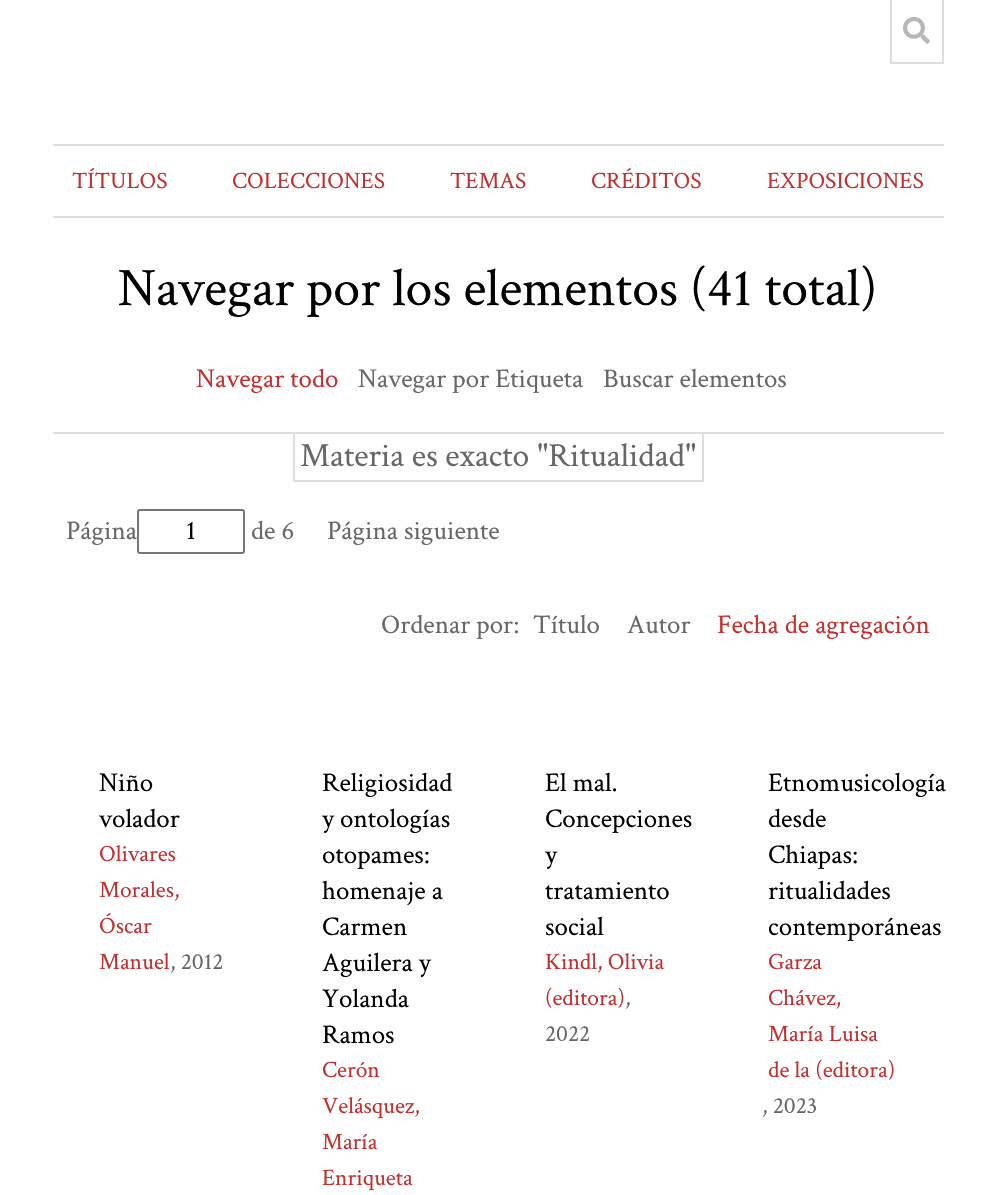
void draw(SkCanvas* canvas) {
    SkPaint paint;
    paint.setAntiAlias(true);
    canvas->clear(0xFFFFFFFF);
    paint.setColor(0xFFDEDEDE);
    canvas->drawRect(SkRect::MakeXYWH(942, 0, 2, 63), paint);
    canvas->drawRect(SkRect::MakeXYWH(890, 62, 54, 2), paint);
    canvas->drawRect(SkRect::MakeXYWH(890, 0, 2, 63), paint);
    canvas->drawImageRect(SkImages::DeferredFromEncodedData(SkData::MakeFromFileName("img1.png")), SkRect::MakeXYWH(903, 16, 27, 28), SkSamplingOptions());
    canvas->drawRect(SkRect::MakeXYWH(53, 144, 891, 2), paint);
    canvas->drawRect(SkRect::MakeXYWH(53, 216, 891, 2), paint);
    SkFont font1(fontMgr->matchFamilyStyle("Crimson Text", SkFontStyle::Normal()), 23.5f);
    font1.setSubpixel(true);
    paint.setColor(0xFFC72E2E);
    canvas->drawString("TÍTULOS", 72, 188, font1, paint);
    canvas->drawString("COLECCIONES", 232, 188, font1, paint);
    canvas->drawString("TEMAS", 450, 188, font1, paint);
    canvas->drawString("CRÉDITOS", 591, 188, font1, paint);
    canvas->drawString("EXPOSICIONES", 767, 188, font1, paint);
    SkFont font2(fontMgr->matchFamilyStyle("Crimson Text", SkFontStyle::Normal()), 54);
    font2.setSubpixel(true);
    paint.setColor(0xFF000000);
    canvas->drawString("Navegar por los elementos (41 total)", 118, 305, font2, paint);
    paint.setColor(0xFFDEDEDE);
    canvas->drawRect(SkRect::MakeXYWH(53, 432, 891, 2), paint);
    SkFont font3(fontMgr->matchFamilyStyle("Crimson Text", SkFontStyle::Normal()), 27);
    font3.setSubpixel(true);
    paint.setColor(0xFFC72E2E);
    canvas->drawString("Navegar todo", 196, 387, font3, paint);
    paint.setColor(0xFF676767);
    canvas->drawString("Navegar por Etiqueta", 358, 387, font3, paint);
    canvas->drawString("Buscar elementos", 603, 387, font3, paint);
    paint.setStyle(SkPaint::kStroke_Style);
    paint.setStrokeWidth(2);
    paint.setColor(0xFFDEDEDE);
    canvas->drawRect(SkRect::MakeXYWH(294, 433, 409, 48), paint);
    SkFont font4(fontMgr->matchFamilyStyle("Crimson Text", SkFontStyle::Normal()), 33.75f);
    font4.setSubpixel(true);
    paint.setStyle(SkPaint::kFill_Style);
    paint.setColor(0xFF676767);
    canvas->drawString("Materia es exacto \"Ritualidad\"", 300, 466, font4, paint);
    canvas->drawString("Página", 66, 539, font3, paint);
    paint.setStyle(SkPaint::kStroke_Style);
    paint.setColor(0xFF767676);
    canvas->drawRoundRect(SkRect::MakeXYWH(138, 510, 106, 43), 2, 2, paint);
    paint.setStyle(SkPaint::kFill_Style);
    paint.setColor(0xFF000000);
    canvas->drawString("1", 186, 539, font3, paint);
    paint.setColor(0xFF676767);
    canvas->drawString("de 6", 251, 539, font3, paint);
    canvas->drawString("Página siguiente", 327, 539, font3, paint);
    canvas->drawString("Ordenar por:", 381, 633, font3, paint);
    canvas->drawString("Título", 533, 633, font3, paint);
    canvas->drawString("Autor", 627, 633, font3, paint);
    paint.setColor(0xFFC72E2E);
    canvas->drawString("Fecha de agregación", 717, 633, font3, paint);
    paint.setColor(0xFF000000);
    canvas->drawString("Niño", 99, 791, font3, paint);
    canvas->drawString("volador", 99, 827, font3, paint);
    paint.setColor(0xFFC72E2E);
    canvas->drawString("Olivares", 99, 861, font1, paint);
    canvas->drawString("Morales,", 99, 897, font1, paint);
    canvas->drawString("Óscar", 99, 933, font1, paint);
    canvas->drawString("Manuel", 99, 969, font1, paint);
    paint.setColor(0xFF676767);
    canvas->drawString(", 2012", 170, 969, font1, paint);
    paint.setColor(0xFF000000);
    canvas->drawString("Religiosidad", 322, 791, font3, paint);
    canvas->drawString("y ontologías", 322, 827, font3, paint);
    canvas->drawString("otopames:", 322, 863, font3, paint);
    canvas->drawString("homenaje a", 322, 899, font3, paint);
    canvas->drawString("Carmen", 322, 935, font3, paint);
    canvas->drawString("Aguilera y", 322, 971, font3, paint);
    canvas->drawString("Yolanda", 322, 1007, font3, paint);
    canvas->drawString("Ramos", 322, 1043, font3, paint);
    paint.setColor(0xFFC72E2E);
    canvas->drawString("Cerón", 322, 1077, font1, paint);
    canvas->drawString("Velásquez,", 322, 1113, font1, paint);
    canvas->drawString("María", 322, 1149, font1, paint);
    canvas->drawString("Enriqueta", 322, 1185, font1, paint);
    paint.setColor(0xFF000000);
    canvas->drawString("El mal.", 545, 791, font3, paint);
    canvas->drawString("Concepciones", 545, 827, font3, paint);
    canvas->drawString("y", 545, 863, font3, paint);
    canvas->drawString("tratamiento", 545, 899, font3, paint);
    canvas->drawString("social", 545, 935, font3, paint);
    paint.setColor(0xFFC72E2E);
    canvas->drawString("Kindl, Olivia", 545, 969, font1, paint);
    canvas->drawString("(editora)", 545, 1005, font1, paint);
    paint.setColor(0xFF676767);
    canvas->drawString(",", 625, 1005, font1, paint);
    canvas->drawString("2022", 545, 1041, font1, paint);
    paint.setColor(0xFF000000);
    canvas->drawString("Etnomusicología", 768, 791, font3, paint);
    canvas->drawString("desde", 768, 827, font3, paint);
    canvas->drawString("Chiapas:", 768, 863, font3, paint);
    canvas->drawString("ritualidades", 768, 899, font3, paint);
    canvas->drawString("contemporáneas", 768, 935, font3, paint);
    paint.setColor(0xFFC72E2E);
    canvas->drawString("Garza", 768, 969, font1, paint);
    canvas->drawString("Chávez,", 768, 1005, font1, paint);
    canvas->drawString("María Luisa", 768, 1041, font1, paint);
    canvas->drawString("de la (editora)", 768, 1077, font1, paint);
    paint.setColor(0xFF676767);
    canvas->drawString(", 2023", 762, 1113, font1, paint);
}
